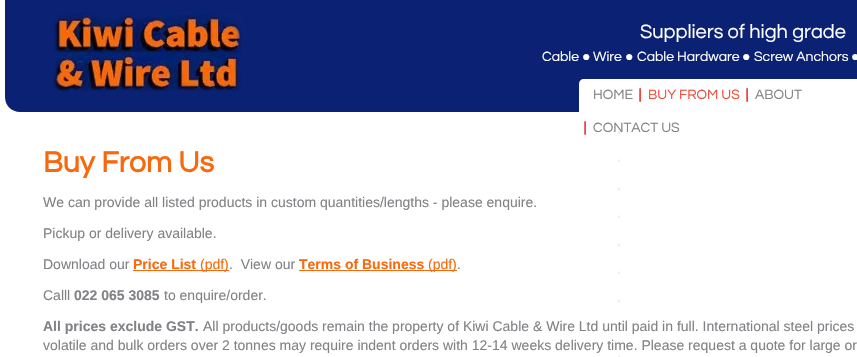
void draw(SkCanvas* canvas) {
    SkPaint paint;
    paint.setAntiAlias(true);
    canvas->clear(0xFFFFFFFF);
    canvas->drawImageRect(SkImages::DeferredFromEncodedData(SkData::MakeFromFileName("img1.png")), SkRect::MakeXYWH(618, 112, 2, 245), SkSamplingOptions());
    paint.setColor(0xFF0B2274);
    canvas->drawPath(SkPathBuilder().moveTo(5, 0).lineTo(857, 0).lineTo(857, 112).lineTo(20, 112).cubicTo(11.5f, 112, 5, 105.5f, 5, 97).close().detach(), paint);
    canvas->drawImageRect(SkImages::DeferredFromEncodedData(SkData::MakeFromFileName("img2.png")), SkRect::MakeXYWH(53, 12, 190, 80), SkSamplingOptions());
    SkFont font1(fontMgr->matchFamilyStyle("Questrial", SkFontStyle::Normal()), 20);
    font1.setSubpixel(true);
    paint.setColor(0xFFFFFFFF);
    canvas->drawString("Suppliers of high grade", 640, 38, font1, paint);
    SkFont font2(fontMgr->matchFamilyStyle("Questrial", SkFontStyle::Normal()), 14);
    font2.setSubpixel(true);
    canvas->drawString("Cable", 542, 61, font2, paint);
    SkFont font3(fontMgr->matchFamilyStyle("Liberation Sans", SkFontStyle::Normal()), 14);
    font3.setSubpixel(true);
    canvas->drawString("●", 582, 61, font3, paint);
    canvas->drawString("Wire", 593, 61, font2, paint);
    canvas->drawString("●", 625, 61, font3, paint);
    canvas->drawString("Cable Hardware", 637, 61, font2, paint);
    canvas->drawString("●", 742, 61, font3, paint);
    canvas->drawString("Screw Anchors", 754, 61, font2, paint);
    canvas->drawString("●", 851, 61, font3, paint);
    canvas->drawPath(SkPathBuilder().moveTo(584, 79).lineTo(857, 79).lineTo(857, 112).lineTo(579, 112).lineTo(579, 84).cubicTo(579, 81, 581, 79, 584, 79).close().detach(), paint);
    paint.setColor(0xFF818285);
    canvas->drawString("HOME", 593, 99, font2, paint);
    canvas->drawImageRect(SkImages::DeferredFromEncodedData(SkData::MakeFromFileName("img3.png")), SkRect::MakeXYWH(639, 88, 2, 14), SkSamplingOptions());
    paint.setColor(0xFFEE4A38);
    canvas->drawString("BUY FROM US", 648, 99, font2, paint);
    canvas->drawImageRect(SkImages::DeferredFromEncodedData(SkData::MakeFromFileName("img3.png")), SkRect::MakeXYWH(746, 88, 2, 14), SkSamplingOptions());
    paint.setColor(0xFF818285);
    canvas->drawString("ABOUT", 755, 99, font2, paint);
    canvas->drawImageRect(SkImages::DeferredFromEncodedData(SkData::MakeFromFileName("img3.png")), SkRect::MakeXYWH(584, 121, 2, 14), SkSamplingOptions());
    canvas->drawString("CONTACT US", 593, 132, font2, paint);
    SkFont font4(fontMgr->matchFamilyStyle("Questrial", SkFontStyle::Bold()), 30);
    font4.setSubpixel(true);
    paint.setColor(0xFFF8690E);
    canvas->drawString("Buy From Us", 43, 172, font4, paint);
    paint.setColor(0xFF818285);
    canvas->drawString("We can provide all listed products in custom quantities/lengths - please enquire.", 43, 207, font3, paint);
    canvas->drawString("Pickup or delivery available.", 43, 238, font3, paint);
    canvas->drawString("Download our", 43, 269, font3, paint);
    SkFont font5(fontMgr->matchFamilyStyle("Liberation Sans", SkFontStyle::Bold()), 14);
    font5.setSubpixel(true);
    paint.setColor(0xFFF8690E);
    canvas->drawString("Price List", 133, 269, font5, paint);
    canvas->drawRect(SkRect::MakeXYWH(133, 270, 96, 1), paint);
    canvas->drawString("(pdf)", 200, 269, font3, paint);
    paint.setColor(0xFF818285);
    canvas->drawString(".  View our", 229, 269, font3, paint);
    paint.setColor(0xFFF8690E);
    canvas->drawString("Terms of Business", 299, 269, font5, paint);
    canvas->drawRect(SkRect::MakeXYWH(299, 270, 158, 1), paint);
    canvas->drawString("(pdf)", 428, 269, font3, paint);
    paint.setColor(0xFF818285);
    canvas->drawString(".", 457, 269, font3, paint);
    canvas->drawString("Calll", 43, 300, font3, paint);
    canvas->drawString("022 065 3085", 74, 300, font5, paint);
    canvas->drawString("to enquire/order.", 164, 300, font3, paint);
    canvas->drawString("All prices exclude GST.", 43, 331, font5, paint);
    canvas->drawString("All products/goods remain the property of Kiwi Cable & Wire Ltd until paid in full. International steel prices", 203, 331, font3, paint);
    canvas->drawString("volatile and bulk orders over 2 tonnes may require indent orders with 12-14 weeks delivery time. Please request a quote for large or", 43, 350, font3, paint);
}
